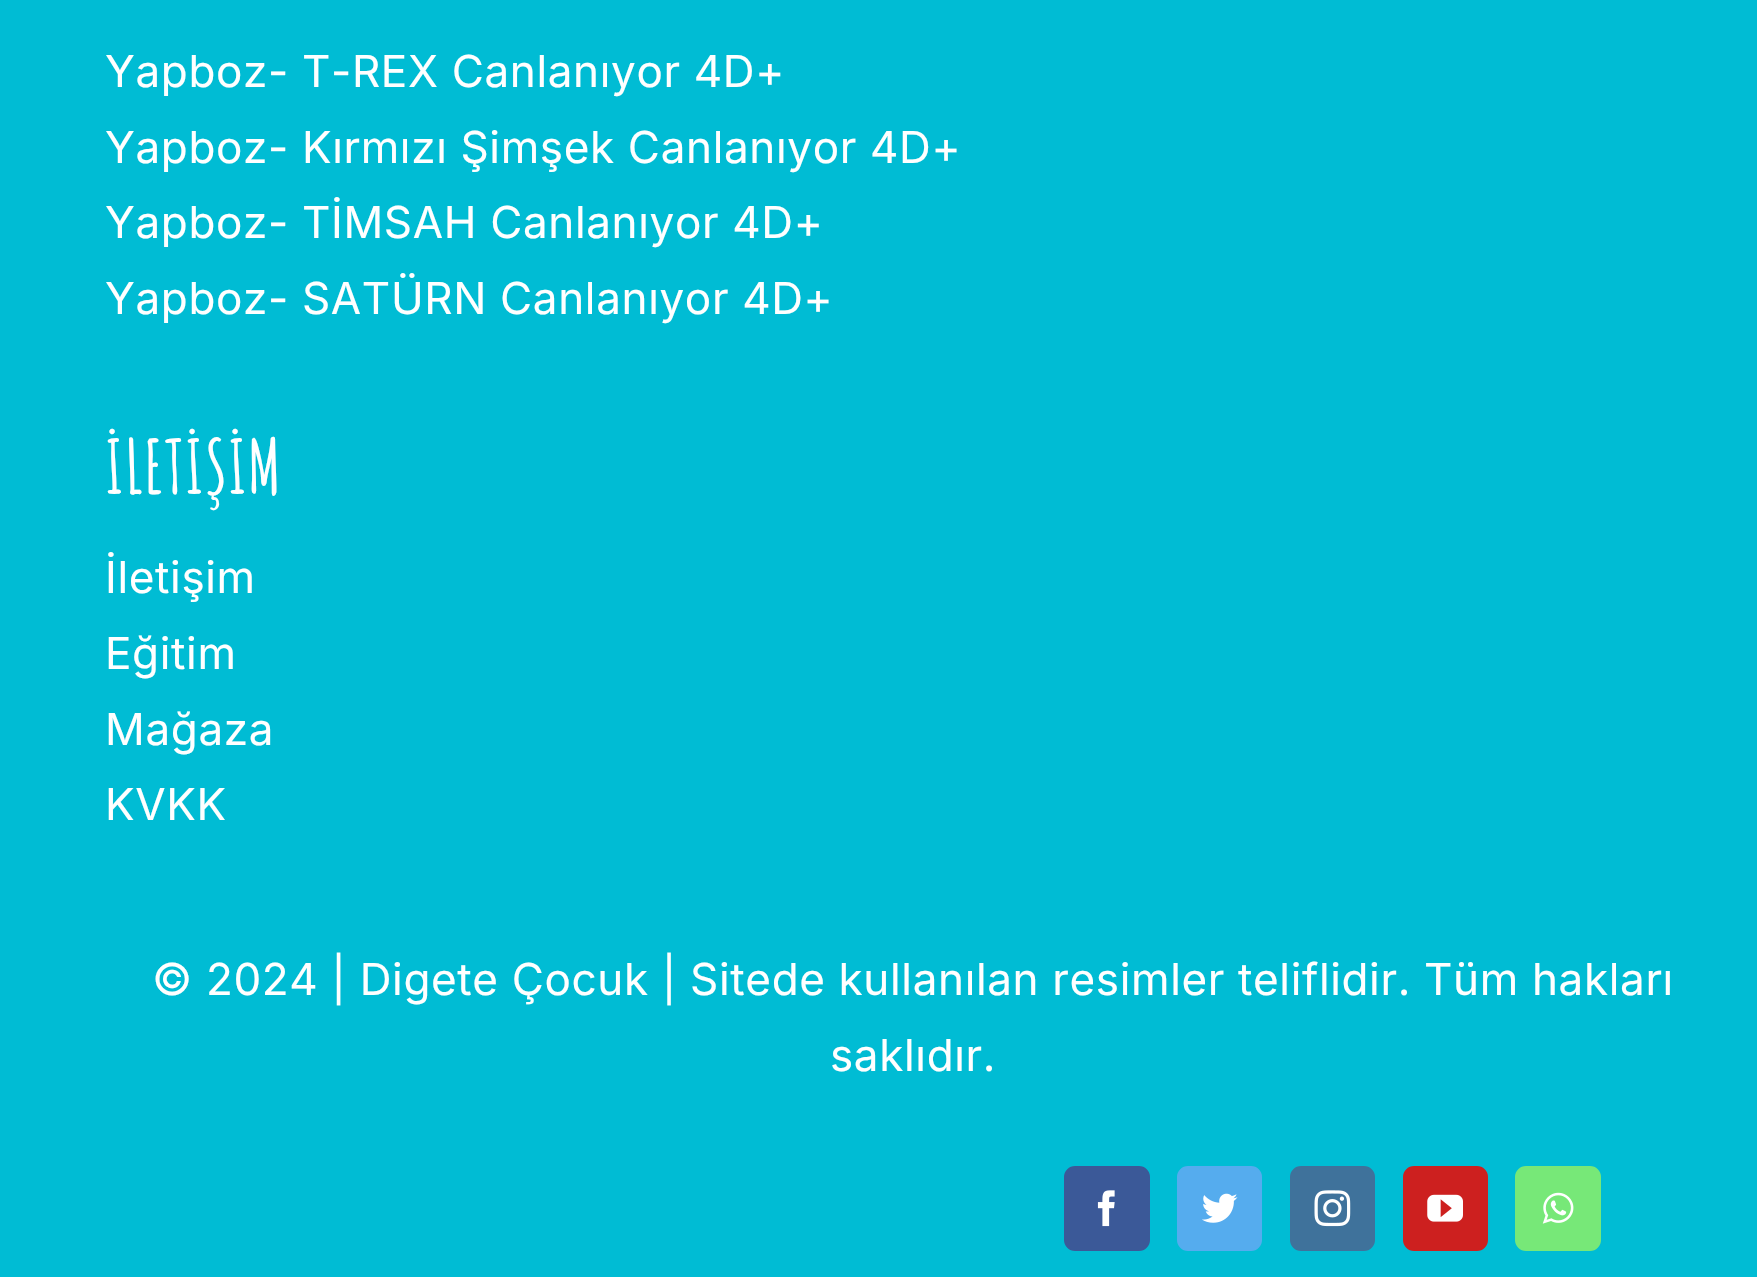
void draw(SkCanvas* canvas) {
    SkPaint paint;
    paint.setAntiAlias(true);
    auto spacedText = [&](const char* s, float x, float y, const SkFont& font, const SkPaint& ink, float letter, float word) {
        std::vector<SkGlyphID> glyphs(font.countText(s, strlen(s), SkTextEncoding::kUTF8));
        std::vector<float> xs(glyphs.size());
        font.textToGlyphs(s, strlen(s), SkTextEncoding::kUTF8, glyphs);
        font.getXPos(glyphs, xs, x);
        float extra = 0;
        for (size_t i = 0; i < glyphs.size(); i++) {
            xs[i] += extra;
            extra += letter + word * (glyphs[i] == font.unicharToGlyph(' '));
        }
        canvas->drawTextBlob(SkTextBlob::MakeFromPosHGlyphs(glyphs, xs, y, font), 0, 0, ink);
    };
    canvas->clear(0xFF00BCD4);
    SkFont font1(fontMgr->matchFamilyStyle("Inter", SkFontStyle::Normal()), 44);
    font1.setSubpixel(true);
    paint.setColor(0xFFFFFFFF);
    spacedText("Yapboz- T-REX Canlanıyor 4D+", 105, 87, font1, paint, 0.65f, 0);
    spacedText("Yapboz- Kırmızı Şimşek Canlanıyor 4D+", 105, 163, font1, paint, 0.65f, 0);
    spacedText("Yapboz- TİMSAH Canlanıyor 4D+", 105, 238, font1, paint, 0.65f, 0);
    spacedText("Yapboz- SATÜRN Canlanıyor 4D+", 105, 314, font1, paint, 0.65f, 0);
    SkFont font2(fontMgr->matchFamilyStyle("Amatic SC", SkFontStyle::Bold()), 74);
    font2.setSubpixel(true);
    spacedText("İLETİŞİM", 105, 494, font2, paint, 0.65f, 0);
    spacedText("İletişim", 105, 593, font1, paint, 0.65f, 0);
    spacedText("Eğitim", 105, 669, font1, paint, 0.65f, 0);
    spacedText("Mağaza", 105, 745, font1, paint, 0.65f, 0);
    spacedText("KVKK", 105, 820, font1, paint, 0.65f, 0);
    spacedText("© 2024 | Digete Çocuk | Sitede kullanılan resimler teliflidir. Tüm hakları", 152, 995, font1, paint, 0.65f, 0);
    spacedText("saklıdır.", 830, 1071, font1, paint, 0.65f, 0);
    paint.setColor(0xFF3B5998);
    canvas->drawRoundRect(SkRect::MakeXYWH(1065.5f, 1167.5f, 83, 82), 9.5f, 9.5f, paint);
    paint.setStyle(SkPaint::kStroke_Style);
    paint.setStrokeWidth(3);
    canvas->drawRoundRect(SkRect::MakeXYWH(1065.5f, 1167.5f, 83, 82), 9.5f, 9.5f, paint);
    canvas->drawImageRect(SkImages::DeferredFromEncodedData(SkData::MakeFromFileName("img1.png")), SkRect::MakeXYWH(1097, 1190, 18, 37), SkSamplingOptions());
    paint.setStyle(SkPaint::kFill_Style);
    paint.setColor(0xFF55ACEE);
    canvas->drawRoundRect(SkRect::MakeXYWH(1178.5f, 1167.5f, 82, 82), 9.5f, 9.5f, paint);
    paint.setStyle(SkPaint::kStroke_Style);
    canvas->drawRoundRect(SkRect::MakeXYWH(1178.5f, 1167.5f, 82, 82), 9.5f, 9.5f, paint);
    canvas->drawImageRect(SkImages::DeferredFromEncodedData(SkData::MakeFromFileName("img2.png")), SkRect::MakeXYWH(1202, 1193, 36, 30), SkSamplingOptions());
    paint.setStyle(SkPaint::kFill_Style);
    paint.setColor(0xFF3F729B);
    canvas->drawRoundRect(SkRect::MakeXYWH(1291.5f, 1167.5f, 82, 82), 9.5f, 9.5f, paint);
    paint.setStyle(SkPaint::kStroke_Style);
    canvas->drawRoundRect(SkRect::MakeXYWH(1291.5f, 1167.5f, 82, 82), 9.5f, 9.5f, paint);
    canvas->drawImageRect(SkImages::DeferredFromEncodedData(SkData::MakeFromFileName("img3.png")), SkRect::MakeXYWH(1314, 1190, 37, 37), SkSamplingOptions());
    paint.setStyle(SkPaint::kFill_Style);
    paint.setColor(0xFFCD201F);
    canvas->drawRoundRect(SkRect::MakeXYWH(1404.5f, 1167.5f, 82, 82), 9.5f, 9.5f, paint);
    paint.setStyle(SkPaint::kStroke_Style);
    canvas->drawRoundRect(SkRect::MakeXYWH(1404.5f, 1167.5f, 82, 82), 9.5f, 9.5f, paint);
    canvas->drawImageRect(SkImages::DeferredFromEncodedData(SkData::MakeFromFileName("img4.png")), SkRect::MakeXYWH(1427, 1194, 36, 28), SkSamplingOptions());
    paint.setStyle(SkPaint::kFill_Style);
    paint.setColor(0xFF77E878);
    canvas->drawRoundRect(SkRect::MakeXYWH(1516.5f, 1167.5f, 83, 82), 9.5f, 9.5f, paint);
    paint.setStyle(SkPaint::kStroke_Style);
    canvas->drawRoundRect(SkRect::MakeXYWH(1516.5f, 1167.5f, 83, 82), 9.5f, 9.5f, paint);
    canvas->drawImageRect(SkImages::DeferredFromEncodedData(SkData::MakeFromFileName("img5.png")), SkRect::MakeXYWH(1542, 1192, 32, 32), SkSamplingOptions());
}
